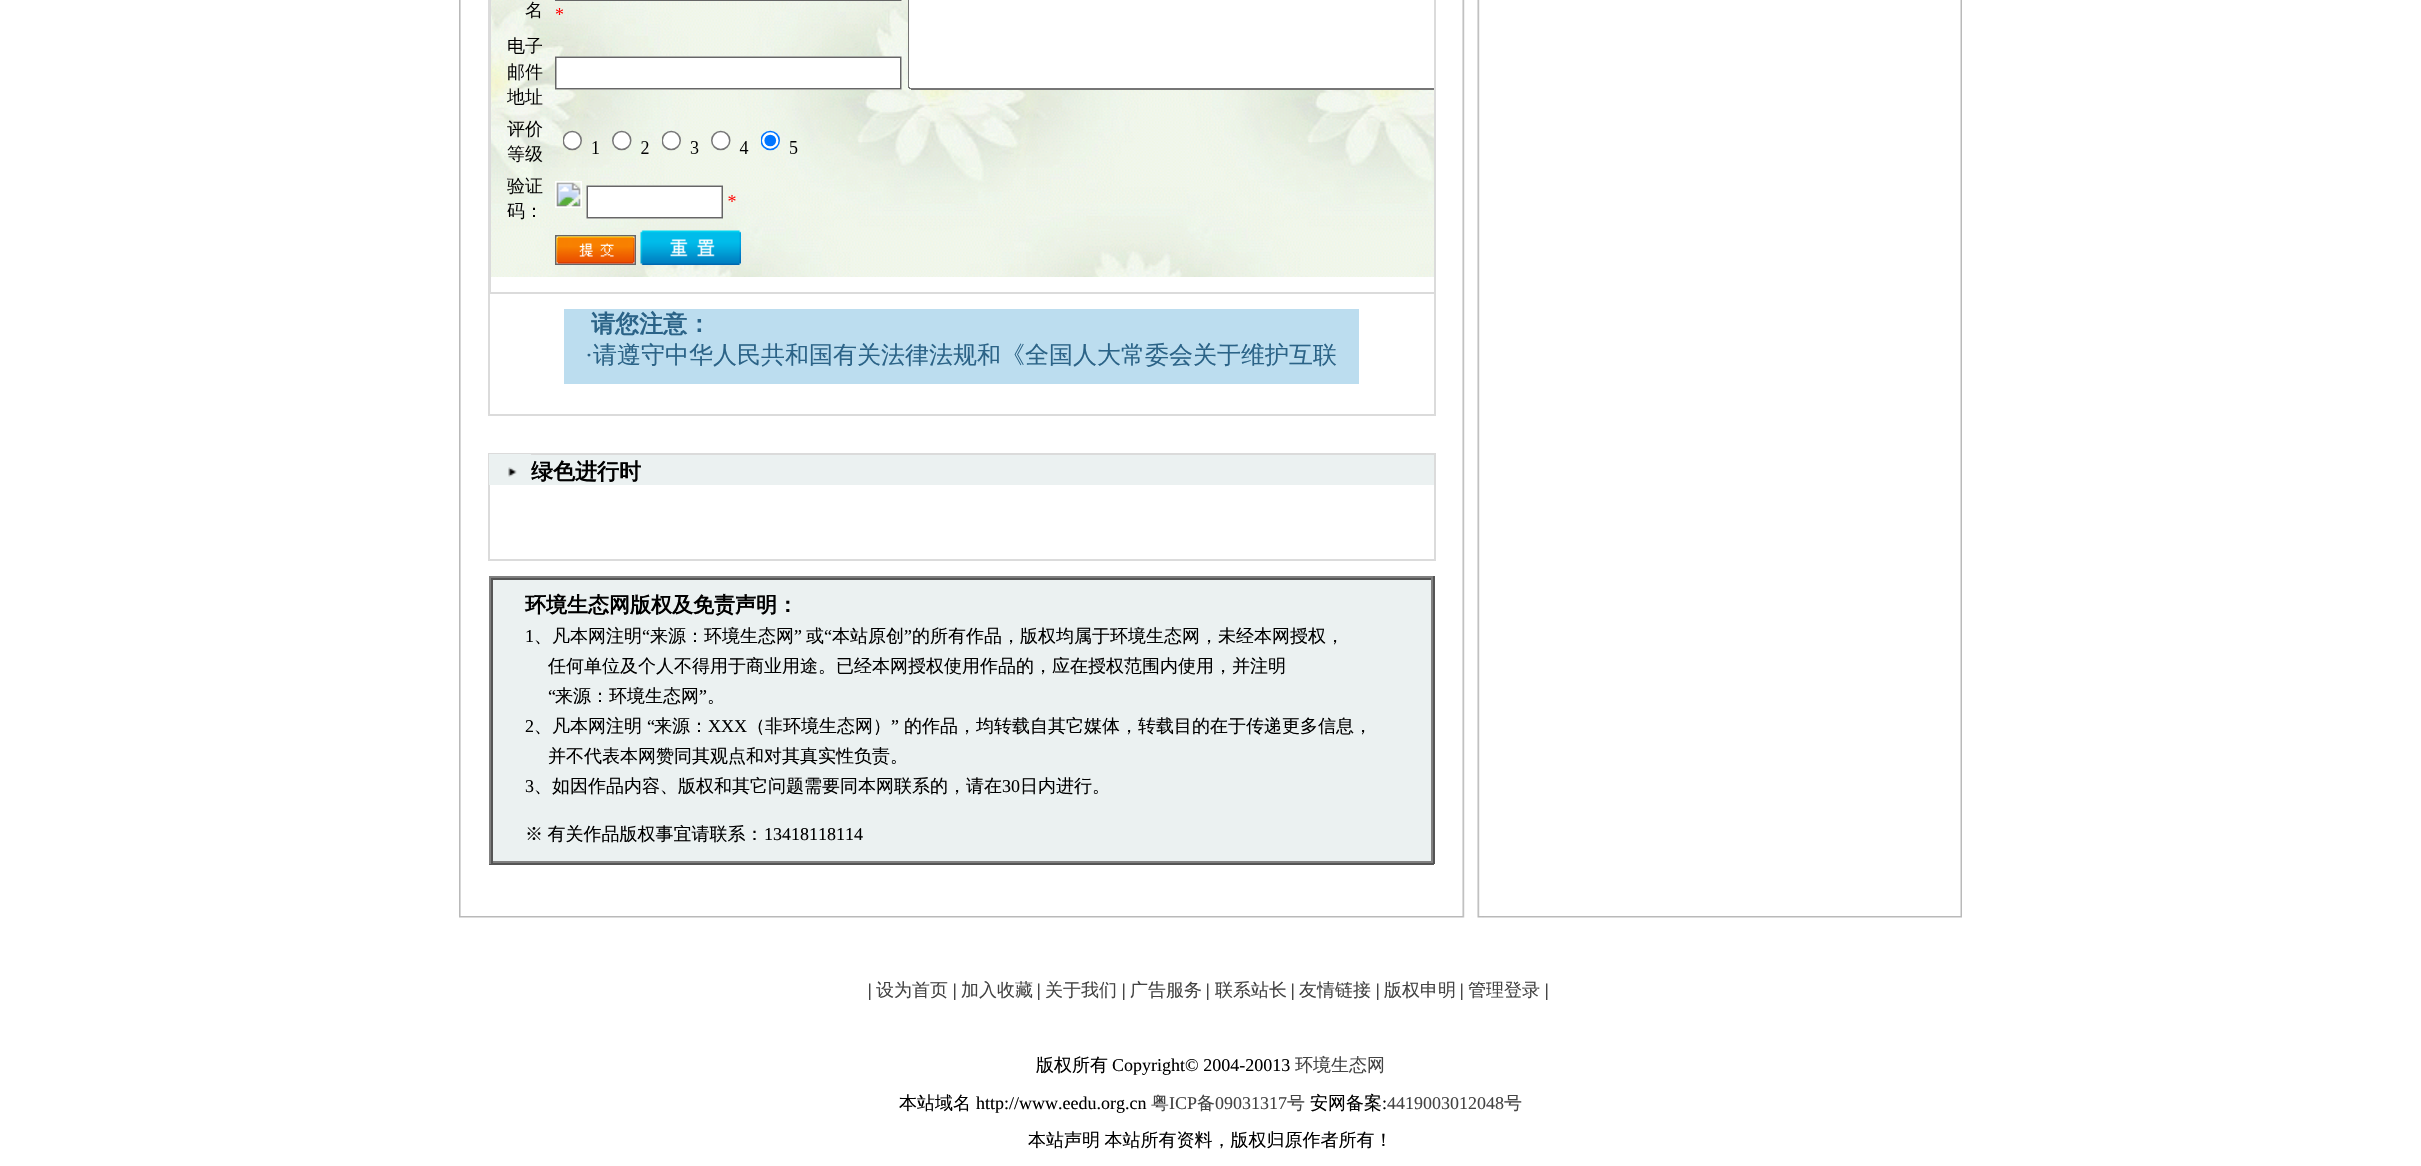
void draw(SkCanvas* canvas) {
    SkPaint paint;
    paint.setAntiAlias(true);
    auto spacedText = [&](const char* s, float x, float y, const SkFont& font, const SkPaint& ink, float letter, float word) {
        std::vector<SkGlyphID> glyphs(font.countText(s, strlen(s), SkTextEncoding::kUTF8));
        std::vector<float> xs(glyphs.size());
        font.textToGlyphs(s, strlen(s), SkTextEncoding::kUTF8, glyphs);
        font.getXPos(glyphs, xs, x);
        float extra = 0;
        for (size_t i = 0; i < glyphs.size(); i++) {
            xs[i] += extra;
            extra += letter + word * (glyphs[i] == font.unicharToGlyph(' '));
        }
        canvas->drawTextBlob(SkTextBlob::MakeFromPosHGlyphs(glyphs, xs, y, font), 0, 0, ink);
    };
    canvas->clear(0xFFFFFFFF);
    canvas->drawImageRect(SkImages::DeferredFromEncodedData(SkData::MakeFromFileName("img1.png")), SkRect::MakeXYWH(459, 0, 1503, 916), SkSamplingOptions());
    paint.setStyle(SkPaint::kStroke_Style);
    paint.setStrokeWidth(2);
    paint.setColor(0xFFDBDBDB);
    canvas->drawRect(SkRect::MakeXYWH(489, -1, 946, 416), paint);
    canvas->save();
    canvas->clipRect(SkRect::MakeXYWH(489, 0, 945, 414));
    canvas->drawRect(SkRect::MakeXYWH(490, -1, 946, 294), paint);
    canvas->restore();
    canvas->drawImageRect(SkImages::DeferredFromEncodedData(SkData::MakeFromFileName("img2.png")), SkRect::MakeXYWH(491, 0, 943, 277), SkSamplingOptions());
    paint.setStyle(SkPaint::kFill_Style);
    paint.setColor(0xFFBCDDEF);
    canvas->drawRect(SkRect::MakeXYWH(564, 309, 795, 75), paint);
    SkFont font1(fontMgr->matchFamilyStyle("WenQuanYi Zen Hei", SkFontStyle::Bold()), 24);
    font1.setSubpixel(true);
    paint.setColor(0xFF2B6387);
    canvas->drawString("请您注意：", 591, 332, font1, paint);
    SkFont font2(fontMgr->matchFamilyStyle("Liberation Serif", SkFontStyle::Normal()), 24);
    font2.setSubpixel(true);
    canvas->drawString("·", 585, 363, font2, paint);
    SkFont font3(fontMgr->matchFamilyStyle("WenQuanYi Zen Hei", SkFontStyle(500, SkFontStyle::kNormal_Width, SkFontStyle::kUpright_Slant)), 24);
    font3.setSubpixel(true);
    canvas->drawString("请遵守中华人民共和国有关法律法规和《全国人大常委会关于维护互联", 593, 363, font3, paint);
    paint.setStyle(SkPaint::kStroke_Style);
    paint.setColor(0xFFDBDBDB);
    canvas->drawRect(SkRect::MakeXYWH(489, 454, 946, 106), paint);
    paint.setStyle(SkPaint::kFill_Style);
    paint.setColor(0xFFEBF1F1);
    canvas->drawRect(SkRect::MakeXYWH(489, 455, 945, 30), paint);
    canvas->drawImageRect(SkImages::DeferredFromEncodedData(SkData::MakeFromFileName("img3.png")), SkRect::MakeXYWH(489, 454, 42, 23), SkSamplingOptions());
    SkFont font4(fontMgr->matchFamilyStyle("WenQuanYi Zen Hei", SkFontStyle::Bold()), 22);
    font4.setSubpixel(true);
    paint.setColor(0xFF000000);
    canvas->drawString("绿色进行时", 531, 479, font4, paint);
    paint.setColor(0xFFEBF1F1);
    canvas->drawRect(SkRect::MakeXYWH(493, 580, 938, 281), paint);
    paint.setColor(0xFF808080);
    canvas->drawRect(SkRect::MakeXYWH(489, 576, 945, 2), paint);
    paint.setColor(0xFF555555);
    canvas->drawRect(SkRect::MakeXYWH(1433, 576, 2, 288), paint);
    canvas->drawRect(SkRect::MakeXYWH(489, 863, 945, 2), paint);
    paint.setColor(0xFF808080);
    canvas->drawRect(SkRect::MakeXYWH(489, 576, 2, 288), paint);
    paint.setColor(0xFF555555);
    canvas->drawRect(SkRect::MakeXYWH(491, 578, 942, 2), paint);
    paint.setColor(0xFF808080);
    canvas->drawRect(SkRect::MakeXYWH(1431, 578, 2, 285), paint);
    canvas->drawRect(SkRect::MakeXYWH(491, 861, 942, 2), paint);
    paint.setColor(0xFF555555);
    canvas->drawRect(SkRect::MakeXYWH(491, 578, 2, 285), paint);
    SkFont font5(fontMgr->matchFamilyStyle("WenQuanYi Zen Hei", SkFontStyle::Bold()), 21);
    font5.setSubpixel(true);
    paint.setColor(0xFF000000);
    canvas->drawString("环境生态网版权及免责声明：", 525, 612, font5, paint);
    SkFont font6(fontMgr->matchFamilyStyle("Liberation Serif", SkFontStyle::Normal()), 18);
    font6.setSubpixel(true);
    canvas->drawString("1", 525, 642, font6, paint);
    SkFont font7(fontMgr->matchFamilyStyle("WenQuanYi Zen Hei", SkFontStyle(500, SkFontStyle::kNormal_Width, SkFontStyle::kUpright_Slant)), 18);
    font7.setSubpixel(true);
    canvas->drawString("、凡本网注明", 534, 642, font7, paint);
    canvas->drawString("“", 642, 642, font6, paint);
    canvas->drawString("来源：环境生态网", 650, 642, font7, paint);
    canvas->drawString("”", 794, 642, font6, paint);
    canvas->drawString("或", 806, 642, font7, paint);
    canvas->drawString("“", 824, 642, font6, paint);
    canvas->drawString("本站原创", 832, 642, font7, paint);
    canvas->drawString("”", 904, 642, font6, paint);
    canvas->drawString("的所有作品，版权均属于环境生态网，未经本网授权，", 912, 642, font7, paint);
    canvas->drawString("任何单位及个人不得用于商业用途。已经本网授权使用作品的，应在授权范围内使用，并注明", 548, 672, font7, paint);
    canvas->drawString("“", 548, 702, font6, paint);
    canvas->drawString("来源：环境生态网", 555, 702, font7, paint);
    canvas->drawString("”", 699, 702, font6, paint);
    canvas->drawString("。", 707, 702, font7, paint);
    canvas->drawString("2", 525, 732, font6, paint);
    canvas->drawString("、凡本网注明", 534, 732, font7, paint);
    canvas->drawString("“", 647, 732, font6, paint);
    canvas->drawString("来源：", 654, 732, font7, paint);
    canvas->drawString("XXX", 708, 732, font6, paint);
    canvas->drawString("（非环境生态网）", 747, 732, font7, paint);
    canvas->drawString("”", 891, 732, font6, paint);
    canvas->drawString("的作品，均转载自其它媒体，转载目的在于传递更多信息，", 904, 732, font7, paint);
    canvas->drawString("并不代表本网赞同其观点和对其真实性负责。", 548, 762, font7, paint);
    canvas->drawString("3", 525, 792, font6, paint);
    canvas->drawString("、如因作品内容、版权和其它问题需要同本网联系的，请在", 534, 792, font7, paint);
    canvas->drawString("30", 1002, 792, font6, paint);
    canvas->drawString("日内进行。", 1020, 792, font7, paint);
    spacedText("※ 有关作品版权事宜请联系：", 525, 840, font7, paint, 0, -1);
    canvas->drawString("13418118114", 764, 840, font6, paint);
    canvas->drawImageRect(SkImages::DeferredFromEncodedData(SkData::MakeFromFileName("img4.png")), SkRect::MakeXYWH(459, 916, 1503, 2), SkSamplingOptions());
    canvas->drawString("|", 868, 996, font6, paint);
    paint.setColor(0xFF434343);
    canvas->drawString("设为首页", 876, 996, font7, paint);
    paint.setColor(0xFF000000);
    canvas->drawString("|", 953, 996, font6, paint);
    paint.setColor(0xFF434343);
    canvas->drawString("加入收藏", 961, 996, font7, paint);
    paint.setColor(0xFF000000);
    canvas->drawString("|", 1037, 996, font6, paint);
    paint.setColor(0xFF434343);
    canvas->drawString("关于我们", 1045, 996, font7, paint);
    paint.setColor(0xFF000000);
    canvas->drawString("|", 1122, 996, font6, paint);
    paint.setColor(0xFF434343);
    canvas->drawString("广告服务", 1130, 996, font7, paint);
    paint.setColor(0xFF000000);
    canvas->drawString("|", 1206, 996, font6, paint);
    paint.setColor(0xFF434343);
    canvas->drawString("联系站长", 1215, 996, font7, paint);
    paint.setColor(0xFF000000);
    canvas->drawString("|", 1291, 996, font6, paint);
    paint.setColor(0xFF434343);
    canvas->drawString("友情链接", 1299, 996, font7, paint);
    paint.setColor(0xFF000000);
    canvas->drawString("|", 1376, 996, font6, paint);
    paint.setColor(0xFF434343);
    canvas->drawString("版权申明", 1384, 996, font7, paint);
    paint.setColor(0xFF000000);
    canvas->drawString("|", 1460, 996, font6, paint);
    paint.setColor(0xFF434343);
    canvas->drawString("管理登录", 1468, 996, font7, paint);
    paint.setColor(0xFF000000);
    canvas->drawString("|", 1545, 996, font6, paint);
    canvas->drawString("版权所有", 1036, 1071, font7, paint);
    canvas->drawString("Copyright© 2004-20013", 1112, 1071, font6, paint);
    paint.setColor(0xFF434343);
    canvas->drawString("环境生态网", 1295, 1071, font7, paint);
    paint.setColor(0xFF000000);
    canvas->drawString("本站域名", 899, 1109, font7, paint);
    canvas->drawString("http://www.eedu.org.cn", 976, 1109, font6, paint);
    paint.setColor(0xFF434343);
    canvas->drawString("粤", 1151, 1109, font7, paint);
    canvas->drawString("ICP", 1169, 1109, font6, paint);
    canvas->drawString("备", 1197, 1109, font7, paint);
    canvas->drawString("09031317", 1215, 1109, font6, paint);
    canvas->drawString("号", 1287, 1109, font7, paint);
    paint.setColor(0xFF000000);
    canvas->drawString("安网备案", 1310, 1109, font7, paint);
    canvas->drawString(":", 1382, 1109, font6, paint);
    paint.setColor(0xFF434343);
    canvas->drawString("4419003012048", 1387, 1109, font6, paint);
    canvas->drawString("号", 1504, 1109, font7, paint);
    paint.setColor(0xFF000000);
    spacedText("本站声明 本站所有资料，版权归原作者所有！", 1028, 1146, font7, paint, 0, -1);
}
